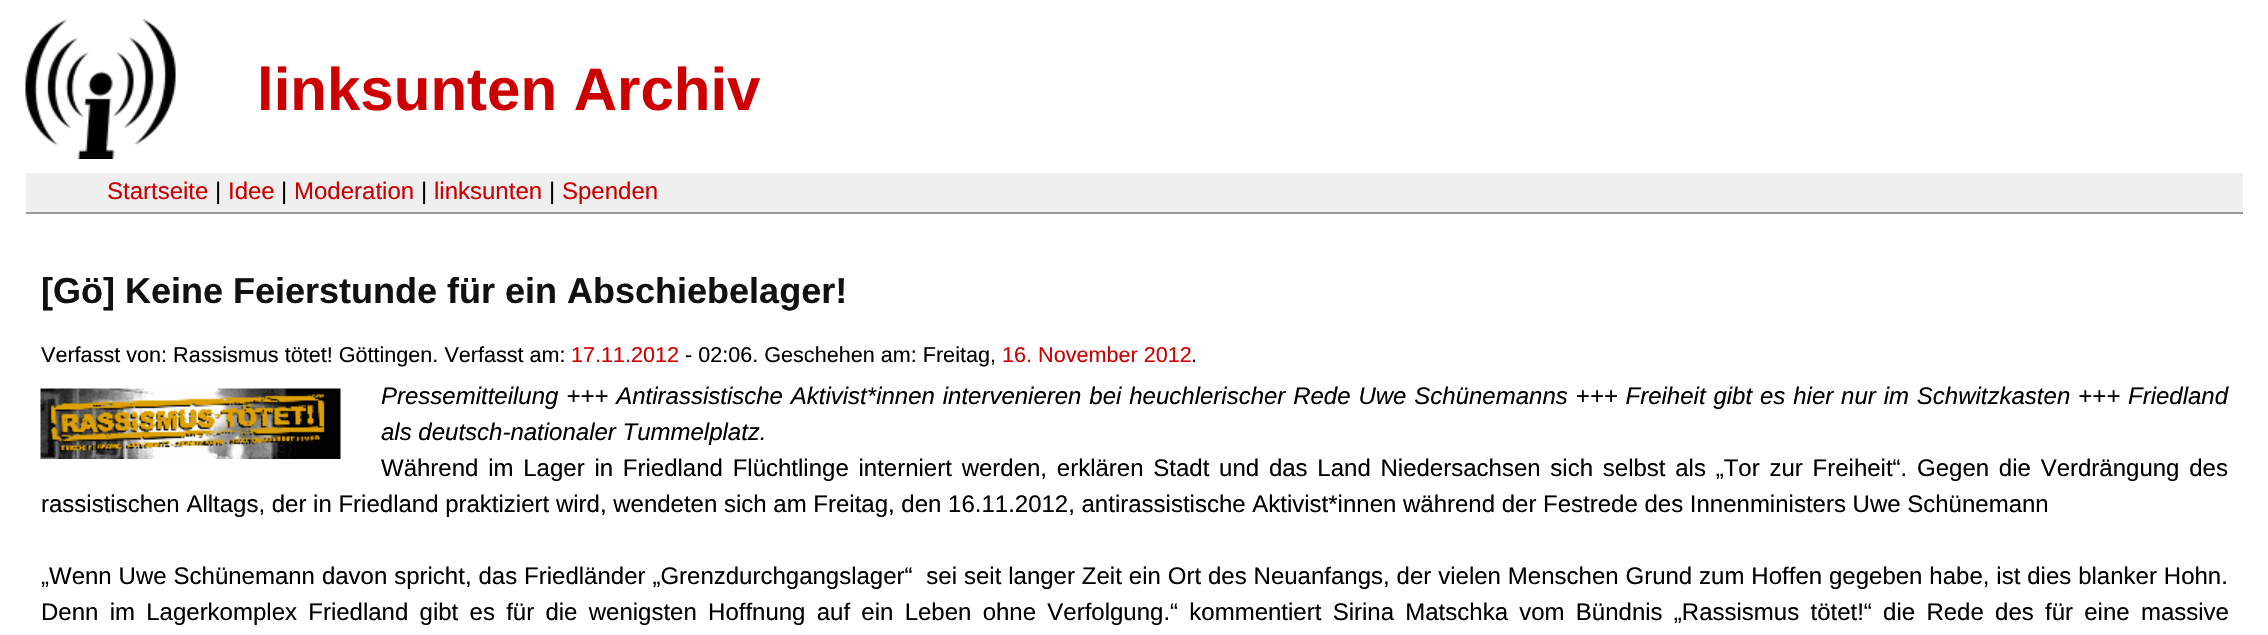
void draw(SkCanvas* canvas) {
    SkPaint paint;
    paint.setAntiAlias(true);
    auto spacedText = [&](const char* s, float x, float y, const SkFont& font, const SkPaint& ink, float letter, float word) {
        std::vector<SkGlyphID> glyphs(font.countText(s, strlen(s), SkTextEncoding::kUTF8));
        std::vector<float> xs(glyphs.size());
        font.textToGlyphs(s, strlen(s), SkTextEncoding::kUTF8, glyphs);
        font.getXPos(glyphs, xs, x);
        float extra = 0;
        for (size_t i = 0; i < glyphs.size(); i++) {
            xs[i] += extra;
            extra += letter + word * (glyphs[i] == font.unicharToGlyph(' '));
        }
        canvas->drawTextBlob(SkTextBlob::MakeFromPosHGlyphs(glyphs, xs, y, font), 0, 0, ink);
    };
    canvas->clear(0xFFFFFFFF);
    canvas->drawImageRect(SkImages::DeferredFromEncodedData(SkData::MakeFromFileName("img1.png")), SkRect::MakeXYWH(25, 19, 151, 140), SkSamplingOptions());
    SkFont font1(fontMgr->matchFamilyStyle("Liberation Sans", SkFontStyle::Bold()), 60);
    font1.setSubpixel(true);
    paint.setColor(0xFFCC0000);
    canvas->drawString("linksunten Archiv", 257, 110, font1, paint);
    paint.setColor(0xFFEFEFEF);
    canvas->drawRect(SkRect::MakeXYWH(26, 173, 2217, 39), paint);
    paint.setColor(0xFF999999);
    canvas->drawRect(SkRect::MakeXYWH(26, 212, 2217, 2), paint);
    SkFont font2(fontMgr->matchFamilyStyle("Liberation Sans", SkFontStyle::Normal()), 24);
    font2.setSubpixel(true);
    paint.setColor(0xFFCC0000);
    canvas->drawString("Startseite", 107, 199, font2, paint);
    paint.setColor(0xFF000000);
    canvas->drawString("|", 215, 199, font2, paint);
    paint.setColor(0xFFCC0000);
    canvas->drawString("Idee", 228, 199, font2, paint);
    paint.setColor(0xFF000000);
    canvas->drawString("|", 281, 199, font2, paint);
    paint.setColor(0xFFCC0000);
    canvas->drawString("Moderation", 294, 199, font2, paint);
    paint.setColor(0xFF000000);
    canvas->drawString("|", 421, 199, font2, paint);
    paint.setColor(0xFFCC0000);
    canvas->drawString("linksunten", 434, 199, font2, paint);
    paint.setColor(0xFF000000);
    canvas->drawString("|", 549, 199, font2, paint);
    paint.setColor(0xFFCC0000);
    canvas->drawString("Spenden", 562, 199, font2, paint);
    SkFont font3(fontMgr->matchFamilyStyle("Liberation Sans", SkFontStyle::Bold()), 36);
    font3.setSubpixel(true);
    paint.setColor(0xFF111111);
    canvas->drawString("[Gö] Keine Feierstunde für ein Abschiebelager!", 41, 303, font3, paint);
    SkFont font4(fontMgr->matchFamilyStyle("Liberation Sans", SkFontStyle::Normal()), 21.6f);
    font4.setSubpixel(true);
    paint.setColor(0xFF000000);
    canvas->drawString("Verfasst von: Rassismus tötet! Göttingen. Verfasst am:", 41, 362, font4, paint);
    paint.setColor(0xFFCC0000);
    canvas->drawString("17.11.2012", 571, 362, font4, paint);
    paint.setColor(0xFF000000);
    canvas->drawString("- 02:06. Geschehen am: Freitag,", 685, 362, font4, paint);
    paint.setColor(0xFFCC0000);
    canvas->drawString("16. November 2012", 1002, 362, font4, paint);
    paint.setColor(0xFF000000);
    canvas->drawString(".", 1191, 362, font4, paint);
    SkFont font5(fontMgr->matchFamilyStyle("Liberation Sans", SkFontStyle::Italic()), 24);
    font5.setSubpixel(true);
    spacedText("Pressemitteilung +++ Antirassistische Aktivist*innen intervenieren bei heuchlerischer Rede Uwe Schünemanns +++ Freiheit gibt es hier nur im Schwitzkasten +++ Friedland", 381, 404, font5, paint, 0, 1.2f);
    canvas->drawString("als deutsch-nationaler Tummelplatz.", 381, 440, font5, paint);
    spacedText("Während im Lager in Friedland Flüchtlinge interniert werden, erklären Stadt und das Land Niedersachsen sich selbst als „Tor zur Freiheit“. Gegen die Verdrängung des", 381, 476, font2, paint, 0, 3.1f);
    canvas->drawString("rassistischen Alltags, der in Friedland praktiziert wird, wendeten sich am Freitag, den 16.11.2012, antirassistische Aktivist*innen während der Festrede des Innenministers Uwe Schünemann", 41, 512, font2, paint);
    spacedText("„Wenn Uwe Schünemann davon spricht, das Friedländer „Grenzdurchgangslager“  sei seit langer Zeit ein Ort des Neuanfangs, der vielen Menschen Grund zum Hoffen gegeben habe, ist dies blanker Hohn.", 41, 584, font2, paint, 0, 0.25f);
    spacedText("Denn im Lagerkomplex Friedland gibt es für die wenigsten Hoffnung auf ein Leben ohne Verfolgung.“ kommentiert Sirina Matschka vom Bündnis „Rassismus tötet!“ die Rede des für eine massive", 41, 620, font2, paint, 0, 4.6f);
    canvas->drawImageRect(SkImages::DeferredFromEncodedData(SkData::MakeFromFileName("img2.png")), SkRect::MakeXYWH(40, 388, 301, 71), SkSamplingOptions());
}
